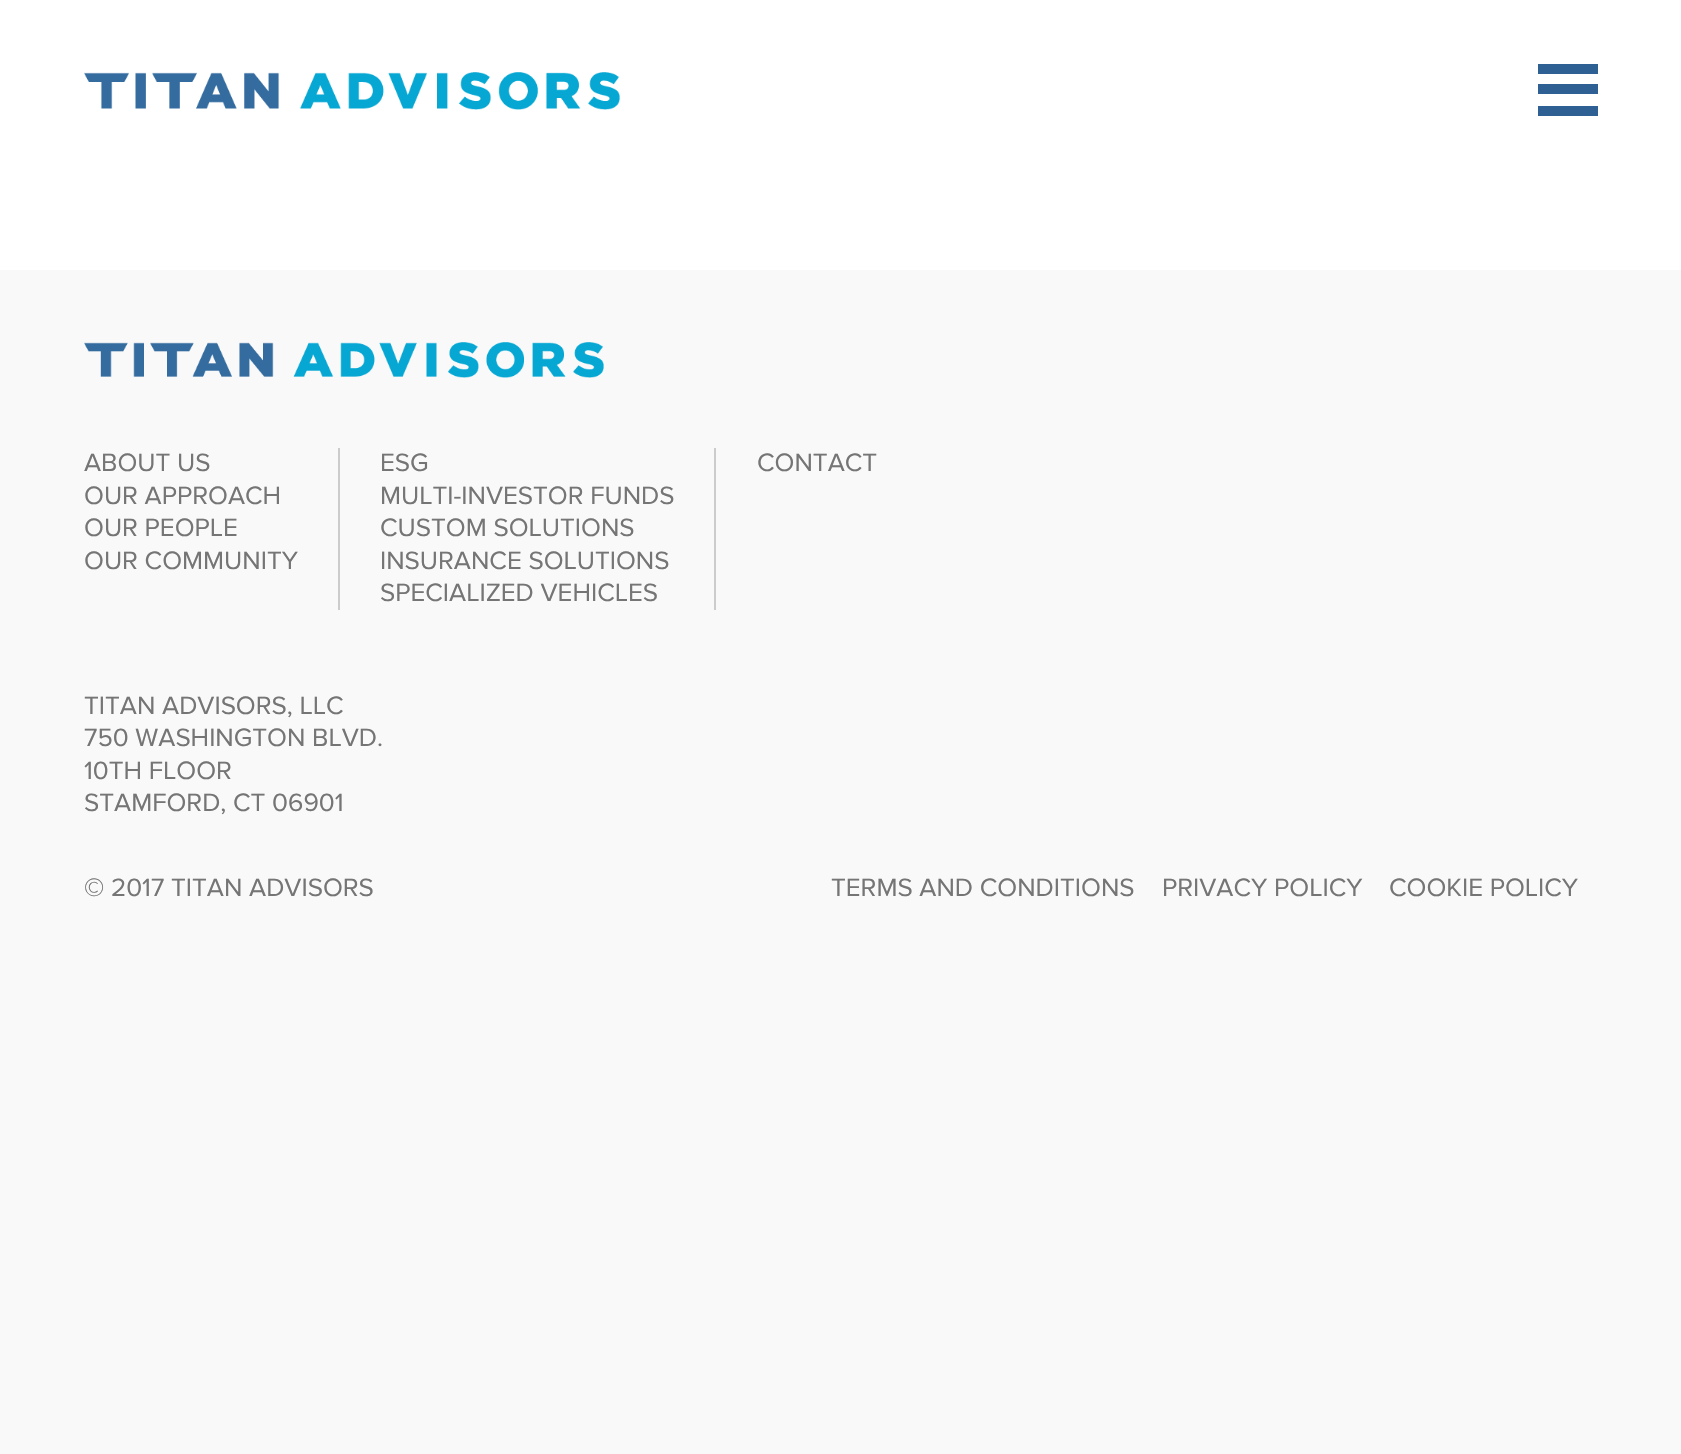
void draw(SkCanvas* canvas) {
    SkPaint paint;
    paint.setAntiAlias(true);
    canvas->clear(0xFFF9F9F9);
    paint.setColor(0xFFFFFFFF);
    canvas->drawRect(SkRect::MakeXYWH(0, 0, 1681, 270), paint);
    canvas->drawImageRect(SkImages::DeferredFromEncodedData(SkData::MakeFromFileName("img1.png")), SkRect::MakeXYWH(84, 72, 536, 38), SkSamplingOptions());
    paint.setColor(0xFF2E6093);
    canvas->drawRect(SkRect::MakeXYWH(1538, 64, 60, 10), paint);
    canvas->drawRect(SkRect::MakeXYWH(1538, 106, 60, 10), paint);
    canvas->drawRect(SkRect::MakeXYWH(1538, 84, 60, 10), paint);
    canvas->drawImageRect(SkImages::DeferredFromEncodedData(SkData::MakeFromFileName("img2.png")), SkRect::MakeXYWH(84, 342, 520, 36), SkSamplingOptions());
    SkFont font1(fontMgr->matchFamilyStyle("Proxima Nova", SkFontStyle::Normal()), 26);
    font1.setSubpixel(true);
    paint.setColor(0xFF757575);
    canvas->drawString("ABOUT US", 84, 471, font1, paint);
    canvas->drawString("OUR APPROACH", 84, 504, font1, paint);
    canvas->drawString("OUR PEOPLE", 84, 536, font1, paint);
    canvas->drawString("OUR COMMUNITY", 84, 569, font1, paint);
    paint.setColor(0xFFCCCCCC);
    canvas->drawRect(SkRect::MakeXYWH(714, 448, 2, 162), paint);
    canvas->drawRect(SkRect::MakeXYWH(338, 448, 2, 162), paint);
    paint.setColor(0xFF757575);
    canvas->drawString("ESG", 380, 471, font1, paint);
    canvas->drawString("MULTI-INVESTOR FUNDS", 380, 504, font1, paint);
    canvas->drawString("CUSTOM SOLUTIONS", 380, 536, font1, paint);
    canvas->drawString("INSURANCE SOLUTIONS", 380, 569, font1, paint);
    canvas->drawString("SPECIALIZED VEHICLES", 380, 601, font1, paint);
    canvas->drawString("CONTACT", 757, 471, font1, paint);
    canvas->drawString("TITAN ADVISORS, LLC", 84, 714, font1, paint);
    canvas->drawString("750 WASHINGTON BLVD.", 84, 746, font1, paint);
    canvas->drawString("10TH FLOOR", 84, 779, font1, paint);
    canvas->drawString("STAMFORD, CT 06901", 84, 811, font1, paint);
    canvas->drawString("© 2017 TITAN ADVISORS", 84, 896, font1, paint);
    canvas->drawString("TERMS AND CONDITIONS", 831, 896, font1, paint);
    canvas->drawString("PRIVACY POLICY", 1162, 896, font1, paint);
    canvas->drawString("COOKIE POLICY", 1389, 896, font1, paint);
}
